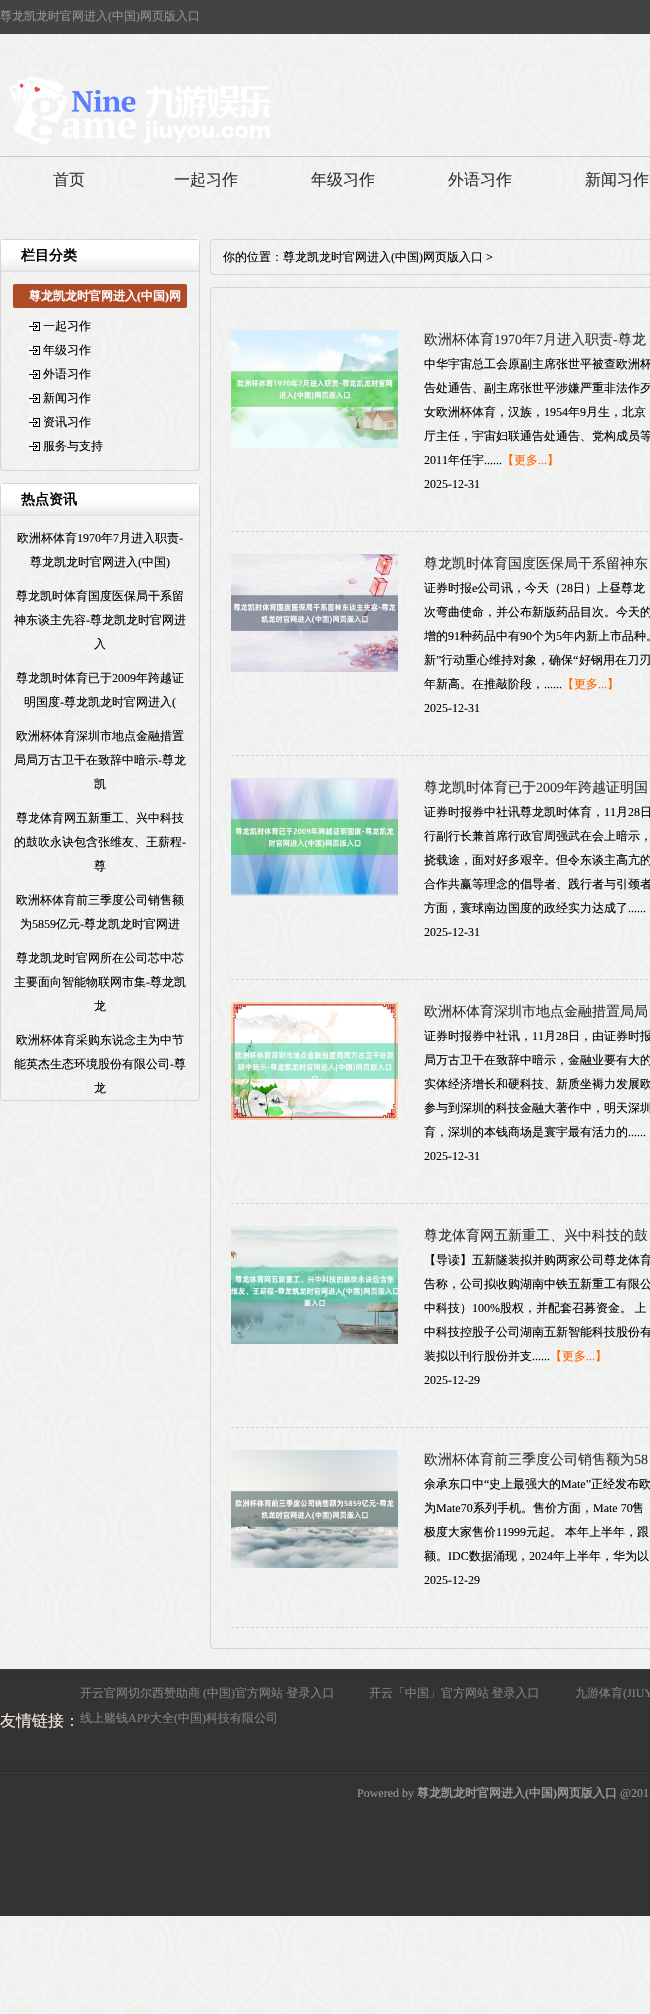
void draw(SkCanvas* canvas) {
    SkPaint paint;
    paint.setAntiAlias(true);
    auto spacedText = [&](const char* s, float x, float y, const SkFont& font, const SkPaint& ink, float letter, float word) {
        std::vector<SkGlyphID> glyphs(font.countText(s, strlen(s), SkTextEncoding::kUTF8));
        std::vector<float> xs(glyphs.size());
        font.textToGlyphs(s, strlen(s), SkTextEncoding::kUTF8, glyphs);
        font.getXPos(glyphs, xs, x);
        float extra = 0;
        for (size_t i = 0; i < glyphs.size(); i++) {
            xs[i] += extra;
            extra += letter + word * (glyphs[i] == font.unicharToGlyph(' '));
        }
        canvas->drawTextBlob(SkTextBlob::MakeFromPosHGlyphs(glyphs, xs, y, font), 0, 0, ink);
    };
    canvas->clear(0xFFFFFFFF);
    canvas->drawImageRect(SkImages::DeferredFromEncodedData(SkData::MakeFromFileName("img1.png")), SkRect::MakeXYWH(0, 34, 650, 1980), SkSamplingOptions());
    paint.setColor(0xFF434343);
    canvas->drawRect(SkRect::MakeXYWH(0, 0, 650, 34), paint);
    SkFont font1(fontMgr->matchFamilyStyle("WenQuanYi Zen Hei", SkFontStyle(500, SkFontStyle::kNormal_Width, SkFontStyle::kUpright_Slant)), 12);
    font1.setSubpixel(true);
    paint.setColor(0xFF939393);
    canvas->drawString("尊龙凯龙时官网进入", 0, 20, font1, paint);
    SkFont font2(fontMgr->matchFamilyStyle("Liberation Serif", SkFontStyle::Normal()), 12);
    font2.setSubpixel(true);
    canvas->drawString("(", 108, 20, font2, paint);
    canvas->drawString("中国", 112, 20, font1, paint);
    canvas->drawString(")", 136, 20, font2, paint);
    canvas->drawString("网页版入口", 140, 20, font1, paint);
    canvas->drawImageRect(SkImages::DeferredFromEncodedData(SkData::MakeFromFileName("img2.png")), SkRect::MakeXYWH(10, 76, 260, 69), SkSamplingOptions());
    paint.setColor(0xFFCCCCCC);
    canvas->drawRect(SkRect::MakeXYWH(0, 156, 650, 1), paint);
    SkFont font3(fontMgr->matchFamilyStyle("WenQuanYi Zen Hei", SkFontStyle(500, SkFontStyle::kNormal_Width, SkFontStyle::kUpright_Slant)), 16);
    font3.setSubpixel(true);
    paint.setColor(0xFF333333);
    canvas->drawString("首页", 53, 185, font3, paint);
    canvas->drawString("一起习作", 174, 185, font3, paint);
    canvas->drawString("年级习作", 311, 185, font3, paint);
    canvas->drawString("外语习作", 448, 185, font3, paint);
    canvas->drawString("新闻习作", 585, 185, font3, paint);
    paint.setStyle(SkPaint::kStroke_Style);
    paint.setStrokeWidth(1);
    paint.setColor(0xFFD5D5D5);
    canvas->drawRoundRect(SkRect::MakeXYWH(0.5f, 239.5f, 199, 231), 3.5f, 3.5f, paint);
    canvas->drawImageRect(SkImages::DeferredFromEncodedData(SkData::MakeFromFileName("img3.png")), SkRect::MakeXYWH(1, 240, 198, 32), SkSamplingOptions());
    SkFont font4(fontMgr->matchFamilyStyle("WenQuanYi Zen Hei", SkFontStyle::Bold()), 14);
    font4.setSubpixel(true);
    paint.setStyle(SkPaint::kFill_Style);
    paint.setColor(0xFF000000);
    canvas->drawString("栏目分类", 21, 260, font4, paint);
    paint.setColor(0xFFB14A27);
    canvas->drawRoundRect(SkRect::MakeXYWH(13, 284, 174, 24), 2, 2, paint);
    SkFont font5(fontMgr->matchFamilyStyle("WenQuanYi Zen Hei", SkFontStyle::Bold()), 12);
    font5.setSubpixel(true);
    paint.setColor(0xFFFFFFFF);
    canvas->drawString("尊龙凯龙时官网进入", 29, 300, font5, paint);
    SkFont font6(fontMgr->matchFamilyStyle("Liberation Serif", SkFontStyle::Bold()), 12);
    font6.setSubpixel(true);
    canvas->drawString("(", 137, 300, font6, paint);
    canvas->drawString("中国", 141, 300, font5, paint);
    canvas->drawString(")", 165, 300, font6, paint);
    canvas->drawString("网", 169, 300, font5, paint);
    canvas->drawImageRect(SkImages::DeferredFromEncodedData(SkData::MakeFromFileName("img4.png")), SkRect::MakeXYWH(29, 322, 11, 9), SkSamplingOptions());
    paint.setColor(0xFF000000);
    canvas->drawString("一起习作", 43, 330, font1, paint);
    canvas->drawImageRect(SkImages::DeferredFromEncodedData(SkData::MakeFromFileName("img4.png")), SkRect::MakeXYWH(29, 346, 11, 9), SkSamplingOptions());
    canvas->drawString("年级习作", 43, 354, font1, paint);
    canvas->drawImageRect(SkImages::DeferredFromEncodedData(SkData::MakeFromFileName("img4.png")), SkRect::MakeXYWH(29, 370, 11, 9), SkSamplingOptions());
    canvas->drawString("外语习作", 43, 378, font1, paint);
    canvas->drawImageRect(SkImages::DeferredFromEncodedData(SkData::MakeFromFileName("img4.png")), SkRect::MakeXYWH(29, 394, 11, 9), SkSamplingOptions());
    canvas->drawString("新闻习作", 43, 402, font1, paint);
    canvas->drawImageRect(SkImages::DeferredFromEncodedData(SkData::MakeFromFileName("img4.png")), SkRect::MakeXYWH(29, 418, 11, 9), SkSamplingOptions());
    canvas->drawString("资讯习作", 43, 426, font1, paint);
    canvas->drawImageRect(SkImages::DeferredFromEncodedData(SkData::MakeFromFileName("img4.png")), SkRect::MakeXYWH(29, 442, 11, 9), SkSamplingOptions());
    canvas->drawString("服务与支持", 43, 450, font1, paint);
    paint.setStyle(SkPaint::kStroke_Style);
    paint.setColor(0xFFD5D5D5);
    canvas->drawRoundRect(SkRect::MakeXYWH(0.5f, 483.5f, 199, 617), 3.5f, 3.5f, paint);
    canvas->drawImageRect(SkImages::DeferredFromEncodedData(SkData::MakeFromFileName("img3.png")), SkRect::MakeXYWH(1, 484, 198, 32), SkSamplingOptions());
    paint.setStyle(SkPaint::kFill_Style);
    paint.setColor(0xFF000000);
    canvas->drawString("热点资讯", 21, 504, font4, paint);
    canvas->drawString("欧洲杯体育", 17, 542, font1, paint);
    canvas->drawString("1970", 77, 542, font2, paint);
    canvas->drawString("年", 101, 542, font1, paint);
    canvas->drawString("7", 113, 542, font2, paint);
    canvas->drawString("月进入职责", 119, 542, font1, paint);
    canvas->drawString("-", 179, 542, font2, paint);
    canvas->drawString("尊龙凯龙时官网进入", 30, 566, font1, paint);
    canvas->drawString("(", 138, 566, font2, paint);
    canvas->drawString("中国", 142, 566, font1, paint);
    canvas->drawString(")", 166, 566, font2, paint);
    canvas->drawString("尊龙凯时体育国度医保局干系留", 16, 600, font1, paint);
    canvas->drawString("神东谈主先容", 14, 624, font1, paint);
    canvas->drawString("-", 86, 624, font2, paint);
    canvas->drawString("尊龙凯龙时官网进", 90, 624, font1, paint);
    canvas->drawString("入", 94, 648, font1, paint);
    canvas->drawString("尊龙凯时体育已于", 16, 682, font1, paint);
    canvas->drawString("2009", 112, 682, font2, paint);
    canvas->drawString("年跨越证", 136, 682, font1, paint);
    canvas->drawString("明国度", 24, 706, font1, paint);
    canvas->drawString("-", 60, 706, font2, paint);
    canvas->drawString("尊龙凯龙时官网进入", 64, 706, font1, paint);
    canvas->drawString("(", 172, 706, font2, paint);
    canvas->drawString("欧洲杯体育深圳市地点金融措置", 16, 740, font1, paint);
    canvas->drawString("局局万古卫干在致辞中暗示", 14, 764, font1, paint);
    canvas->drawString("-", 158, 764, font2, paint);
    canvas->drawString("尊龙", 162, 764, font1, paint);
    canvas->drawString("凯", 94, 788, font1, paint);
    canvas->drawString("尊龙体育网五新重工、兴中科技", 16, 822, font1, paint);
    canvas->drawString("的鼓吹永诀包含张维友、王薪程", 14, 846, font1, paint);
    canvas->drawString("-", 182, 846, font2, paint);
    canvas->drawString("尊", 94, 870, font1, paint);
    canvas->drawString("欧洲杯体育前三季度公司销售额", 16, 904, font1, paint);
    canvas->drawString("为", 20, 928, font1, paint);
    canvas->drawString("5859", 32, 928, font2, paint);
    canvas->drawString("亿元", 56, 928, font1, paint);
    canvas->drawString("-", 80, 928, font2, paint);
    canvas->drawString("尊龙凯龙时官网进", 84, 928, font1, paint);
    canvas->drawString("尊龙凯龙时官网所在公司芯中芯", 16, 962, font1, paint);
    canvas->drawString("主要面向智能物联网市集", 14, 986, font1, paint);
    canvas->drawString("-", 146, 986, font2, paint);
    canvas->drawString("尊龙凯", 150, 986, font1, paint);
    canvas->drawString("龙", 94, 1010, font1, paint);
    canvas->drawString("欧洲杯体育采购东说念主为中节", 16, 1044, font1, paint);
    canvas->drawString("能英杰生态环境股份有限公司", 14, 1068, font1, paint);
    canvas->drawString("-", 170, 1068, font2, paint);
    canvas->drawString("尊", 174, 1068, font1, paint);
    canvas->drawString("龙", 94, 1092, font1, paint);
    paint.setStyle(SkPaint::kStroke_Style);
    paint.setColor(0xFFD5D5D5);
    canvas->drawRoundRect(SkRect::MakeXYWH(210.5f, 239.5f, 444, 35), 3.5f, 3.5f, paint);
    paint.setStyle(SkPaint::kFill_Style);
    paint.setColor(0xFF000000);
    canvas->drawString("你的位置：尊龙凯龙时官网进入", 223, 261, font1, paint);
    canvas->drawString("(", 391, 261, font2, paint);
    canvas->drawString("中国", 395, 261, font1, paint);
    canvas->drawString(")", 419, 261, font2, paint);
    canvas->drawString("网页版入口", 423, 261, font1, paint);
    canvas->drawString(">", 486, 261, font2, paint);
    paint.setStyle(SkPaint::kStroke_Style);
    paint.setColor(0xFFD5D5D5);
    canvas->drawRoundRect(SkRect::MakeXYWH(210.5f, 287.5f, 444, 1361), 3.5f, 3.5f, paint);
    canvas->drawImageRect(SkImages::DeferredFromEncodedData(SkData::MakeFromFileName("img5.png")), SkRect::MakeXYWH(231, 330, 167, 118), SkSamplingOptions());
    SkFont font7(fontMgr->matchFamilyStyle("WenQuanYi Zen Hei", SkFontStyle(500, SkFontStyle::kNormal_Width, SkFontStyle::kUpright_Slant)), 14);
    font7.setSubpixel(true);
    paint.setStyle(SkPaint::kFill_Style);
    paint.setColor(0xFF333333);
    canvas->drawString("欧洲杯体育", 424, 344, font7, paint);
    SkFont font8(fontMgr->matchFamilyStyle("Liberation Serif", SkFontStyle::Normal()), 14);
    font8.setSubpixel(true);
    canvas->drawString("1970", 494, 344, font8, paint);
    canvas->drawString("年", 522, 344, font7, paint);
    canvas->drawString("7", 536, 344, font8, paint);
    canvas->drawString("月进入职责", 543, 344, font7, paint);
    canvas->drawString("-", 613, 344, font8, paint);
    canvas->drawString("尊龙", 618, 344, font7, paint);
    paint.setColor(0xFF000000);
    spacedText("中华宇宙总工会原副主席张世平被查欧洲杯", 424, 368, font1, paint, 0, -1);
    spacedText("告处通告、副主席张世平涉嫌严重非法作歹", 424, 392, font1, paint, 0, -1);
    canvas->drawString("女欧洲杯体育，汉族，", 424, 416, font1, paint);
    canvas->drawString("1954", 544, 416, font2, paint);
    canvas->drawString("年", 568, 416, font1, paint);
    canvas->drawString("9", 580, 416, font2, paint);
    canvas->drawString("月生，北京", 586, 416, font1, paint);
    canvas->drawString("厅主任，宇宙妇联通告处通告、党构成员等", 424, 440, font1, paint);
    canvas->drawString("2011", 424, 464, font2, paint);
    canvas->drawString("年任宇", 448, 464, font1, paint);
    canvas->drawString("......", 484, 464, font2, paint);
    paint.setColor(0xFFFF6600);
    canvas->drawString("【更多", 502, 464, font1, paint);
    canvas->drawString("...", 538, 464, font2, paint);
    canvas->drawString("】", 547, 464, font1, paint);
    paint.setColor(0xFF000000);
    canvas->drawString("2025-12-31", 424, 488, font2, paint);
    paint.setStyle(SkPaint::kStroke_Style);
    paint.setColor(0xFFD1D2D1);
    paint.setPathEffect(SkDashPathEffect::Make({{3, 1.99f}}, 0));
    canvas->drawPath(SkPathBuilder().moveTo(231, 531.5f).lineTo(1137, 531.5f).detach(), paint);
    paint.setPathEffect(nullptr);
    canvas->drawImageRect(SkImages::DeferredFromEncodedData(SkData::MakeFromFileName("img6.png")), SkRect::MakeXYWH(231, 554, 167, 118), SkSamplingOptions());
    paint.setStyle(SkPaint::kFill_Style);
    paint.setColor(0xFF333333);
    canvas->drawString("尊龙凯时体育国度医保局干系留神东", 424, 568, font7, paint);
    paint.setColor(0xFF000000);
    canvas->drawString("证券时报", 424, 592, font1, paint);
    canvas->drawString("e", 472, 592, font2, paint);
    canvas->drawString("公司讯，今天（", 477, 592, font1, paint);
    canvas->drawString("28", 561, 592, font2, paint);
    canvas->drawString("日）上昼尊龙", 573, 592, font1, paint);
    canvas->drawString("次弯曲使命，并公布新版药品目次。今天的", 424, 616, font1, paint);
    canvas->drawString("增的", 424, 640, font1, paint);
    canvas->drawString("91", 448, 640, font2, paint);
    canvas->drawString("种药品中有", 460, 640, font1, paint);
    canvas->drawString("90", 520, 640, font2, paint);
    canvas->drawString("个为", 532, 640, font1, paint);
    canvas->drawString("5", 556, 640, font2, paint);
    canvas->drawString("年内新上市品种。", 562, 640, font1, paint);
    canvas->drawString("新", 424, 664, font1, paint);
    canvas->drawString("”", 436, 664, font2, paint);
    canvas->drawString("行动重心维持对象，确保", 441, 664, font1, paint);
    canvas->drawString("“", 573, 664, font2, paint);
    canvas->drawString("好钢用在刀刃", 579, 664, font1, paint);
    canvas->drawString("年新高。在推敲阶段，", 424, 688, font1, paint);
    canvas->drawString("......", 544, 688, font2, paint);
    paint.setColor(0xFFFF6600);
    canvas->drawString("【更多", 562, 688, font1, paint);
    canvas->drawString("...", 598, 688, font2, paint);
    canvas->drawString("】", 607, 688, font1, paint);
    paint.setColor(0xFF000000);
    canvas->drawString("2025-12-31", 424, 712, font2, paint);
    paint.setStyle(SkPaint::kStroke_Style);
    paint.setColor(0xFFD1D2D1);
    paint.setPathEffect(SkDashPathEffect::Make({{3, 1.99f}}, 0));
    canvas->drawPath(SkPathBuilder().moveTo(231, 755.5f).lineTo(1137, 755.5f).detach(), paint);
    paint.setPathEffect(nullptr);
    canvas->drawImageRect(SkImages::DeferredFromEncodedData(SkData::MakeFromFileName("img7.png")), SkRect::MakeXYWH(231, 778, 167, 118), SkSamplingOptions());
    paint.setStyle(SkPaint::kFill_Style);
    paint.setColor(0xFF333333);
    canvas->drawString("尊龙凯时体育已于", 424, 792, font7, paint);
    canvas->drawString("2009", 536, 792, font8, paint);
    canvas->drawString("年跨越证明国", 564, 792, font7, paint);
    paint.setColor(0xFF000000);
    canvas->drawString("证券时报券中社讯尊龙凯时体育，", 424, 816, font1, paint);
    canvas->drawString("11", 604, 816, font2, paint);
    canvas->drawString("月", 616, 816, font1, paint);
    canvas->drawString("28", 628, 816, font2, paint);
    canvas->drawString("日", 640, 816, font1, paint);
    spacedText("行副行长兼首席行政官周强武在会上暗示，", 424, 840, font1, paint, 0, -1);
    canvas->drawString("挠载途，面对好多艰辛。但令东谈主高亢的", 424, 864, font1, paint);
    canvas->drawString("合作共赢等理念的倡导者、践行者与引颈者", 424, 888, font1, paint);
    canvas->drawString("方面，寰球南边国度的政经实力达成了", 424, 912, font1, paint);
    canvas->drawString("......", 628, 912, font2, paint);
    canvas->drawString("2025-12-31", 424, 936, font2, paint);
    paint.setStyle(SkPaint::kStroke_Style);
    paint.setColor(0xFFD1D2D1);
    paint.setPathEffect(SkDashPathEffect::Make({{3, 1.99f}}, 0));
    canvas->drawPath(SkPathBuilder().moveTo(231, 979.5f).lineTo(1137, 979.5f).detach(), paint);
    paint.setPathEffect(nullptr);
    canvas->drawImageRect(SkImages::DeferredFromEncodedData(SkData::MakeFromFileName("img8.png")), SkRect::MakeXYWH(231, 1002, 167, 118), SkSamplingOptions());
    paint.setStyle(SkPaint::kFill_Style);
    paint.setColor(0xFF333333);
    canvas->drawString("欧洲杯体育深圳市地点金融措置局局", 424, 1016, font7, paint);
    paint.setColor(0xFF000000);
    canvas->drawString("证券时报券中社讯，", 424, 1040, font1, paint);
    canvas->drawString("11", 532, 1040, font2, paint);
    canvas->drawString("月", 544, 1040, font1, paint);
    canvas->drawString("28", 556, 1040, font2, paint);
    canvas->drawString("日，由证券时报", 568, 1040, font1, paint);
    canvas->drawString("局万古卫干在致辞中暗示，金融业要有大的", 424, 1064, font1, paint);
    canvas->drawString("实体经济增长和硬科技、新质坐褥力发展欧", 424, 1088, font1, paint);
    canvas->drawString("参与到深圳的科技金融大著作中，明天深圳", 424, 1112, font1, paint);
    canvas->drawString("育，深圳的本钱商场是寰宇最有活力的", 424, 1136, font1, paint);
    canvas->drawString("......", 628, 1136, font2, paint);
    canvas->drawString("2025-12-31", 424, 1160, font2, paint);
    paint.setStyle(SkPaint::kStroke_Style);
    paint.setColor(0xFFD1D2D1);
    paint.setPathEffect(SkDashPathEffect::Make({{3, 1.99f}}, 0));
    canvas->drawPath(SkPathBuilder().moveTo(231, 1203.5f).lineTo(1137, 1203.5f).detach(), paint);
    paint.setPathEffect(nullptr);
    canvas->drawImageRect(SkImages::DeferredFromEncodedData(SkData::MakeFromFileName("img9.png")), SkRect::MakeXYWH(231, 1226, 167, 118), SkSamplingOptions());
    paint.setStyle(SkPaint::kFill_Style);
    paint.setColor(0xFF333333);
    canvas->drawString("尊龙体育网五新重工、兴中科技的鼓", 424, 1240, font7, paint);
    paint.setColor(0xFF000000);
    canvas->drawString("【导读】五新隧装拟并购两家公司尊龙体育", 424, 1264, font1, paint);
    canvas->drawString("告称，公司拟收购湖南中铁五新重工有限公", 424, 1288, font1, paint);
    canvas->drawString("中科技）", 424, 1312, font1, paint);
    canvas->drawString("100%", 472, 1312, font2, paint);
    spacedText("股权，并配套召募资金。 上", 500, 1312, font1, paint, 0, -1);
    canvas->drawString("中科技控股子公司湖南五新智能科技股份有", 424, 1336, font1, paint);
    canvas->drawString("装拟以刊行股份并支", 424, 1360, font1, paint);
    canvas->drawString("......", 532, 1360, font2, paint);
    paint.setColor(0xFFFF6600);
    canvas->drawString("【更多", 550, 1360, font1, paint);
    canvas->drawString("...", 586, 1360, font2, paint);
    canvas->drawString("】", 595, 1360, font1, paint);
    paint.setColor(0xFF000000);
    canvas->drawString("2025-12-29", 424, 1384, font2, paint);
    paint.setStyle(SkPaint::kStroke_Style);
    paint.setColor(0xFFD1D2D1);
    paint.setPathEffect(SkDashPathEffect::Make({{3, 1.99f}}, 0));
    canvas->drawPath(SkPathBuilder().moveTo(231, 1427.5f).lineTo(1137, 1427.5f).detach(), paint);
    paint.setPathEffect(nullptr);
    canvas->drawImageRect(SkImages::DeferredFromEncodedData(SkData::MakeFromFileName("img10.png")), SkRect::MakeXYWH(231, 1450, 167, 118), SkSamplingOptions());
    paint.setStyle(SkPaint::kFill_Style);
    paint.setColor(0xFF333333);
    canvas->drawString("欧洲杯体育前三季度公司销售额为", 424, 1464, font7, paint);
    canvas->drawString("58", 634, 1464, font8, paint);
    paint.setColor(0xFF000000);
    canvas->drawString("余承东口中", 424, 1488, font1, paint);
    canvas->drawString("“", 484, 1488, font2, paint);
    canvas->drawString("史上最强大的", 489, 1488, font1, paint);
    canvas->drawString("Mate”", 561, 1488, font2, paint);
    canvas->drawString("正经发布欧", 591, 1488, font1, paint);
    canvas->drawString("为", 424, 1512, font1, paint);
    canvas->drawString("Mate70", 436, 1512, font2, paint);
    canvas->drawString("系列手机。售价方面，", 473, 1512, font1, paint);
    canvas->drawString("Mate 70", 593, 1512, font2, paint);
    canvas->drawString("售", 632, 1512, font1, paint);
    canvas->drawString("极度大家售价", 424, 1536, font1, paint);
    canvas->drawString("11999", 496, 1536, font2, paint);
    canvas->drawString("元起。", 526, 1536, font1, paint);
    canvas->drawString("本年上半年，跟", 565, 1536, font1, paint);
    canvas->drawString("额。", 424, 1560, font1, paint);
    canvas->drawString("IDC", 448, 1560, font2, paint);
    canvas->drawString("数据涌现，", 469, 1560, font1, paint);
    canvas->drawString("2024", 529, 1560, font2, paint);
    canvas->drawString("年上半年，华为以", 553, 1560, font1, paint);
    canvas->drawString("2025-12-29", 424, 1584, font2, paint);
    paint.setStyle(SkPaint::kStroke_Style);
    paint.setColor(0xFFD1D2D1);
    paint.setPathEffect(SkDashPathEffect::Make({{3, 1.99f}}, 0));
    canvas->drawPath(SkPathBuilder().moveTo(231, 1627.5f).lineTo(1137, 1627.5f).detach(), paint);
    paint.setPathEffect(nullptr);
    canvas->drawImageRect(SkImages::DeferredFromEncodedData(SkData::MakeFromFileName("img11.png")), SkRect::MakeXYWH(0, 1669, 650, 247), SkSamplingOptions());
    paint.setStyle(SkPaint::kFill_Style);
    paint.setColor(0xFF828282);
    canvas->drawString("开云官网切尔西赞助商", 80, 1697, font1, paint);
    canvas->drawString("(", 203, 1697, font2, paint);
    canvas->drawString("中国", 207, 1697, font1, paint);
    canvas->drawString(")", 231, 1697, font2, paint);
    canvas->drawString("官方网站 登录入口", 235, 1697, font1, paint);
    spacedText("开云「中国」官方网站 登录入口", 369, 1697, font1, paint, 0, -1);
    canvas->drawString("九游体育", 575, 1697, font1, paint);
    canvas->drawString("(JIUY", 623, 1697, font2, paint);
    paint.setColor(0xFFEFE7DA);
    canvas->drawString("友情链接：", 0, 1726, font3, paint);
    paint.setColor(0xFF828282);
    canvas->drawString("线上赌钱", 80, 1722, font1, paint);
    canvas->drawString("APP", 128, 1722, font2, paint);
    canvas->drawString("大全", 150, 1722, font1, paint);
    canvas->drawString("(", 174, 1722, font2, paint);
    canvas->drawString("中国", 178, 1722, font1, paint);
    canvas->drawString(")", 202, 1722, font2, paint);
    canvas->drawString("科技有限公司", 206, 1722, font1, paint);
    paint.setColor(0xFF999999);
    canvas->drawString("Powered by", 357, 1797, font2, paint);
    canvas->drawString("尊龙凯龙时官网进入", 417, 1797, font5, paint);
    canvas->drawString("(", 525, 1797, font6, paint);
    canvas->drawString("中国", 529, 1797, font5, paint);
    canvas->drawString(")", 553, 1797, font6, paint);
    canvas->drawString("网页版入口", 557, 1797, font5, paint);
    canvas->drawString("@201", 620, 1797, font2, paint);
}
